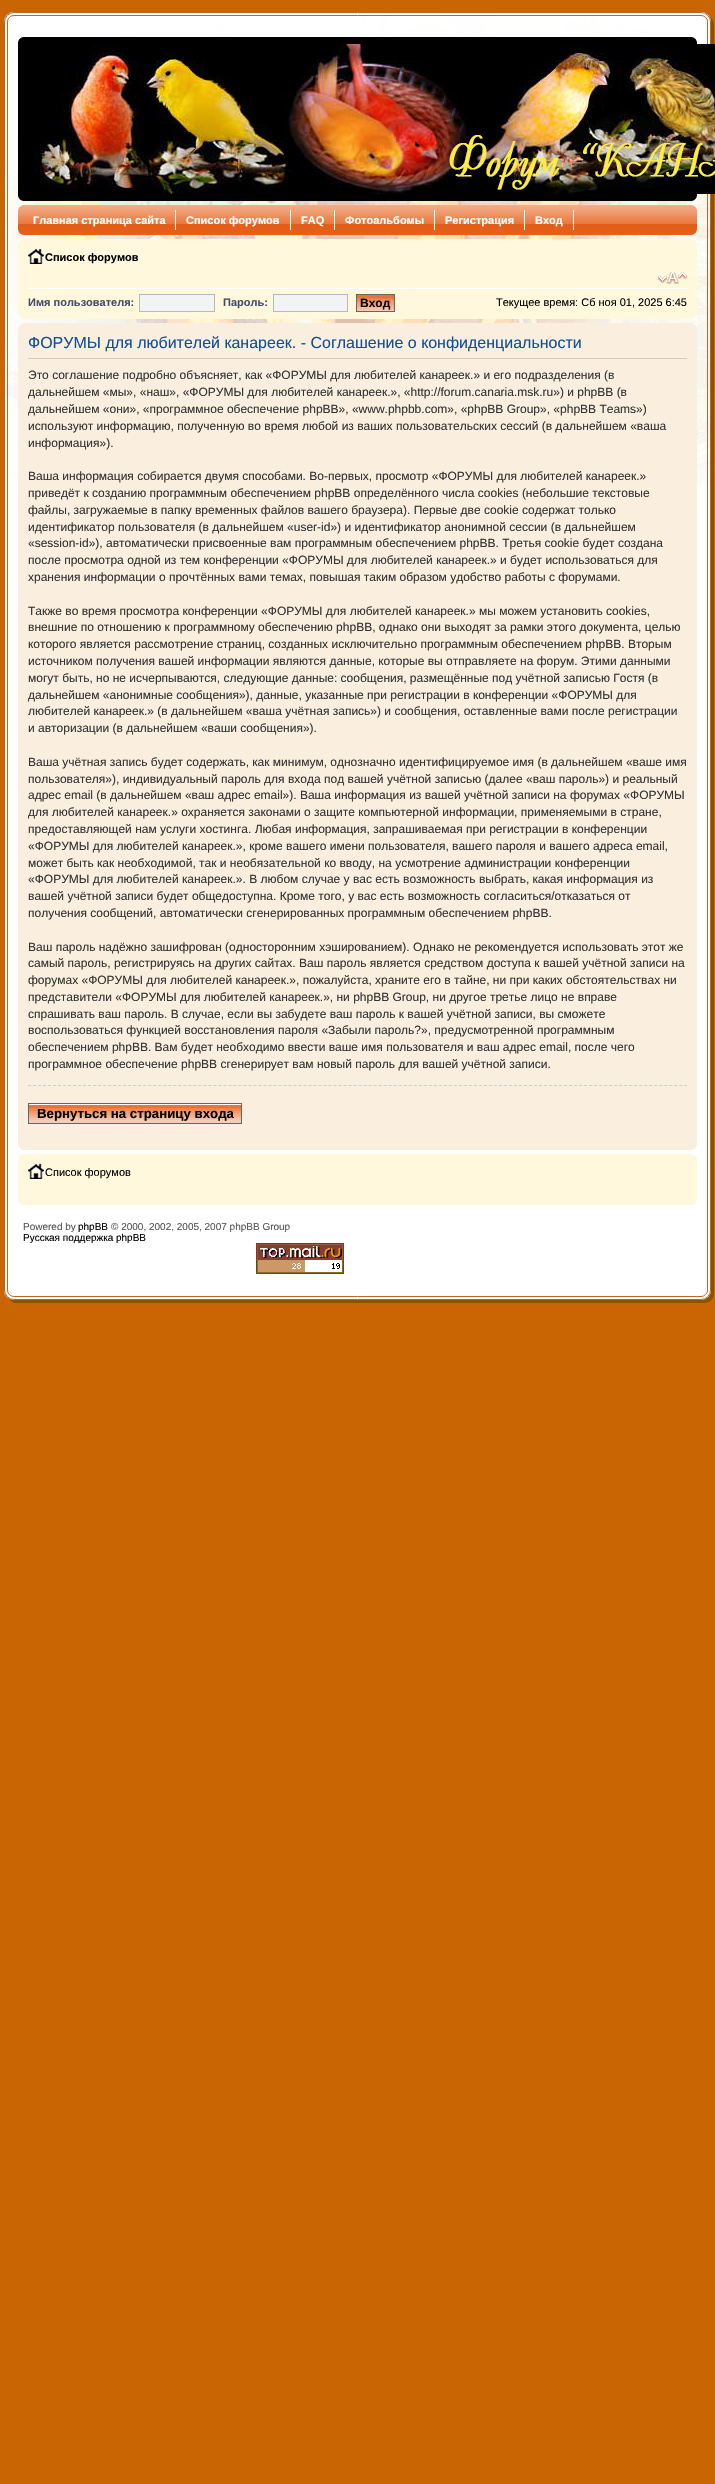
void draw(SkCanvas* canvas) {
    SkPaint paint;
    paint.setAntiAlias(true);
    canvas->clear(0xFFCA6503);
    paint.setColor(0xFF8D5104);
    canvas->drawPath(SkPathBuilder().moveTo(9, 1298).cubicTo(10, 1301, 13, 1303, 17, 1303).lineTo(704, 1303).cubicTo(710, 1303, 714, 1299, 714, 1293).lineTo(714, 25).cubicTo(714, 21, 712, 18, 709, 17).cubicTo(710, 18, 711, 20, 711, 22).lineTo(711, 1290).cubicTo(711, 1296, 707, 1300, 701, 1300).lineTo(14, 1300).cubicTo(12, 1300, 10, 1299, 9, 1298).close().detach(), paint);
    paint.setColor(0xFFFFFFFF);
    canvas->drawRoundRect(SkRect::MakeXYWH(4, 12, 707, 1288), 10, 10, paint);
    canvas->drawImageRect(SkImages::DeferredFromEncodedData(SkData::MakeFromFileName("img1.png")), SkRect::MakeXYWH(4, 12, 707, 539), SkSamplingOptions());
    paint.setStyle(SkPaint::kStroke_Style);
    paint.setStrokeWidth(1);
    paint.setColor(0xFFBB6525);
    canvas->drawRoundRect(SkRect::MakeXYWH(4.5f, 12.5f, 706, 1287), 9.5f, 9.5f, paint);
    canvas->drawRoundRect(SkRect::MakeXYWH(7.5f, 15.5f, 700, 1281), 6.5f, 6.5f, paint);
    paint.setStyle(SkPaint::kFill_Style);
    paint.setColor(0xFF000000);
    canvas->drawRect(SkRect::MakeXYWH(18, 37, 679, 164), paint);
    canvas->drawImageRect(SkImages::DeferredFromEncodedData(SkData::MakeFromFileName("img2.png")), SkRect::MakeXYWH(18, 37, 6, 5), SkSamplingOptions());
    canvas->drawImageRect(SkImages::DeferredFromEncodedData(SkData::MakeFromFileName("img3.png")), SkRect::MakeXYWH(691, 37, 6, 5), SkSamplingOptions());
    canvas->drawImageRect(SkImages::DeferredFromEncodedData(SkData::MakeFromFileName("img4.png")), SkRect::MakeXYWH(33, 44, 682, 150), SkSamplingOptions());
    canvas->drawImageRect(SkImages::DeferredFromEncodedData(SkData::MakeFromFileName("img5.png")), SkRect::MakeXYWH(18, 196, 5, 5), SkSamplingOptions());
    canvas->drawImageRect(SkImages::DeferredFromEncodedData(SkData::MakeFromFileName("img6.png")), SkRect::MakeXYWH(692, 196, 5, 5), SkSamplingOptions());
    canvas->drawImageRect(SkImages::DeferredFromEncodedData(SkData::MakeFromFileName("img7.png")), SkRect::MakeXYWH(18, 205, 679, 30), SkSamplingOptions());
    canvas->drawImageRect(SkImages::DeferredFromEncodedData(SkData::MakeFromFileName("img8.png")), SkRect::MakeXYWH(18, 205, 5, 5), SkSamplingOptions());
    canvas->drawImageRect(SkImages::DeferredFromEncodedData(SkData::MakeFromFileName("img9.png")), SkRect::MakeXYWH(692, 205, 5, 5), SkSamplingOptions());
    paint.setColor(0xFFFFFFFF);
    canvas->drawRect(SkRect::MakeXYWH(175, 210, 1, 20), paint);
    SkFont font1(fontMgr->matchFamilyStyle("Liberation Sans", SkFontStyle::Bold()), 11);
    font1.setSubpixel(true);
    canvas->drawString("Главная страница сайта", 33, 224, font1, paint);
    canvas->drawRect(SkRect::MakeXYWH(290, 210, 1, 20), paint);
    canvas->drawString("Список форумов", 186, 224, font1, paint);
    canvas->drawRect(SkRect::MakeXYWH(334, 210, 1, 20), paint);
    canvas->drawString("FAQ", 301, 224, font1, paint);
    canvas->drawRect(SkRect::MakeXYWH(434, 210, 1, 20), paint);
    canvas->drawString("Фотоальбомы", 345, 224, font1, paint);
    canvas->drawRect(SkRect::MakeXYWH(524, 210, 1, 20), paint);
    canvas->drawString("Регистрация", 445, 224, font1, paint);
    canvas->drawRect(SkRect::MakeXYWH(573, 210, 1, 20), paint);
    canvas->drawString("Вход", 535, 224, font1, paint);
    canvas->drawImageRect(SkImages::DeferredFromEncodedData(SkData::MakeFromFileName("img10.png")), SkRect::MakeXYWH(18, 230, 5, 5), SkSamplingOptions());
    canvas->drawImageRect(SkImages::DeferredFromEncodedData(SkData::MakeFromFileName("img11.png")), SkRect::MakeXYWH(692, 230, 5, 5), SkSamplingOptions());
    paint.setColor(0xFFFFF8DD);
    canvas->drawRect(SkRect::MakeXYWH(18, 239, 679, 80), paint);
    canvas->drawImageRect(SkImages::DeferredFromEncodedData(SkData::MakeFromFileName("img12.png")), SkRect::MakeXYWH(18, 239, 5, 5), SkSamplingOptions());
    canvas->drawImageRect(SkImages::DeferredFromEncodedData(SkData::MakeFromFileName("img13.png")), SkRect::MakeXYWH(692, 239, 5, 5), SkSamplingOptions());
    paint.setColor(0xFFFFFFFF);
    canvas->drawRect(SkRect::MakeXYWH(28, 288, 659, 1), paint);
    canvas->drawImageRect(SkImages::DeferredFromEncodedData(SkData::MakeFromFileName("img14.png")), SkRect::MakeXYWH(28, 249, 16, 15), SkSamplingOptions());
    paint.setColor(0xFF000000);
    canvas->drawString("Список форумов", 45, 261, font1, paint);
    canvas->drawImageRect(SkImages::DeferredFromEncodedData(SkData::MakeFromFileName("img15.png")), SkRect::MakeXYWH(658, 272, 29, 12), SkSamplingOptions());
    paint.setColor(0xFF425067);
    canvas->drawString("Имя пользователя:", 28, 306, font1, paint);
    paint.setColor(0xFFF2F3F3);
    canvas->drawRect(SkRect::MakeXYWH(139.5f, 294.5f, 75, 17), paint);
    paint.setStyle(SkPaint::kStroke_Style);
    paint.setColor(0xFFB4BAC0);
    canvas->drawRect(SkRect::MakeXYWH(139.5f, 294.5f, 75, 17), paint);
    paint.setStyle(SkPaint::kFill_Style);
    paint.setColor(0xFF425067);
    canvas->drawString("Пароль:", 223, 306, font1, paint);
    paint.setColor(0xFFF2F3F3);
    canvas->drawRect(SkRect::MakeXYWH(273.5f, 294.5f, 74, 17), paint);
    paint.setStyle(SkPaint::kStroke_Style);
    paint.setColor(0xFFB4BAC0);
    canvas->drawRect(SkRect::MakeXYWH(273.5f, 294.5f, 74, 17), paint);
    canvas->drawImageRect(SkImages::DeferredFromEncodedData(SkData::MakeFromFileName("img16.png")), SkRect::MakeXYWH(357, 295, 37, 16), SkSamplingOptions());
    paint.setColor(0xFF666666);
    canvas->drawRect(SkRect::MakeXYWH(356.5f, 294.5f, 38, 17), paint);
    SkFont font2(fontMgr->matchFamilyStyle("Liberation Sans", SkFontStyle::Bold()), 12);
    font2.setSubpixel(true);
    paint.setStyle(SkPaint::kFill_Style);
    paint.setColor(0xFF000000);
    canvas->drawString("Вход", 360, 307, font2, paint);
    SkFont font3(fontMgr->matchFamilyStyle("Liberation Sans", SkFontStyle::Normal()), 11);
    font3.setSubpixel(true);
    canvas->drawString("Текущее время: Сб ноя 01, 2025 6:45", 496, 306, font3, paint);
    canvas->drawImageRect(SkImages::DeferredFromEncodedData(SkData::MakeFromFileName("img17.png")), SkRect::MakeXYWH(18, 314, 5, 5), SkSamplingOptions());
    canvas->drawImageRect(SkImages::DeferredFromEncodedData(SkData::MakeFromFileName("img18.png")), SkRect::MakeXYWH(692, 314, 5, 5), SkSamplingOptions());
    paint.setColor(0xFFFAEEDE);
    canvas->drawRect(SkRect::MakeXYWH(18, 323, 679, 827), paint);
    canvas->drawImageRect(SkImages::DeferredFromEncodedData(SkData::MakeFromFileName("img19.png")), SkRect::MakeXYWH(18, 323, 5, 5), SkSamplingOptions());
    canvas->drawImageRect(SkImages::DeferredFromEncodedData(SkData::MakeFromFileName("img20.png")), SkRect::MakeXYWH(692, 323, 5, 5), SkSamplingOptions());
    paint.setColor(0xFFCCCCCC);
    canvas->drawRect(SkRect::MakeXYWH(28, 358, 659, 1), paint);
    SkFont font4(fontMgr->matchFamilyStyle("Liberation Sans", SkFontStyle::Normal()), 16);
    font4.setSubpixel(true);
    paint.setColor(0xFF115098);
    canvas->drawString("ФОРУМЫ для любителей канареек. - Соглашение о конфиденциальности", 28, 348, font4, paint);
    SkFont font5(fontMgr->matchFamilyStyle("Liberation Sans", SkFontStyle::Normal()), 12);
    font5.setSubpixel(true);
    paint.setColor(0xFF333333);
    canvas->drawString("Это соглашение подробно объясняет, как «ФОРУМЫ для любителей канареек.» и его подразделения (в", 28, 379, font5, paint);
    canvas->drawString("дальнейшем «мы», «наш», «ФОРУМЫ для любителей канареек.», «http://forum.canaria.msk.ru») и phpBB (в", 28, 396, font5, paint);
    canvas->drawString("дальнейшем «они», «программное обеспечение phpBB», «www.phpbb.com», «phpBB Group», «phpBB Teams»)", 28, 413, font5, paint);
    canvas->drawString("используют информацию, полученную во время любой из ваших пользовательских сессий (в дальнейшем «ваша", 28, 430, font5, paint);
    canvas->drawString("информация»).", 28, 447, font5, paint);
    canvas->drawString("Ваша информация собирается двумя способами. Во-первых, просмотр «ФОРУМЫ для любителей канареек.»", 28, 480, font5, paint);
    canvas->drawString("приведёт к созданию программным обеспечением phpBB определённого числа cookies (небольшие текстовые", 28, 497, font5, paint);
    canvas->drawString("файлы, загружаемые в папку временных файлов вашего браузера). Первые две cookie содержат только", 28, 514, font5, paint);
    canvas->drawString("идентификатор пользователя (в дальнейшем «user-id») и идентификатор анонимной сессии (в дальнейшем", 28, 531, font5, paint);
    canvas->drawString("«session-id»), автоматически присвоенные вам программным обеспечением phpBB. Третья cookie будет создана", 28, 547, font5, paint);
    canvas->drawString("после просмотра одной из тем конференции «ФОРУМЫ для любителей канареек.» и будет использоваться для", 28, 564, font5, paint);
    canvas->drawString("хранения информации о прочтённых вами темах, повышая таким образом удобство работы с форумами.", 28, 581, font5, paint);
    canvas->drawString("Также во время просмотра конференции «ФОРУМЫ для любителей канареек.» мы можем установить cookies,", 28, 615, font5, paint);
    canvas->drawString("внешние по отношению к программному обеспечению phpBB, однако они выходят за рамки этого документа, целью", 28, 631, font5, paint);
    canvas->drawString("которого является рассмотрение страниц, созданных исключительно программным обеспечением phpBB. Вторым", 28, 648, font5, paint);
    canvas->drawString("источником получения вашей информации являются данные, которые вы отправляете на форум. Этими данными", 28, 665, font5, paint);
    canvas->drawString("могут быть, но не исчерпываются, следующие данные: сообщения, размещённые под учётной записью Гостя (в", 28, 682, font5, paint);
    canvas->drawString("дальнейшем «анонимные сообщения»), данные, указанные при регистрации в конференции «ФОРУМЫ для", 28, 699, font5, paint);
    canvas->drawString("любителей канареек.» (в дальнейшем «ваша учётная запись») и сообщения, оставленные вами после регистрации", 28, 715, font5, paint);
    canvas->drawString("и авторизации (в дальнейшем «ваши сообщения»).", 28, 732, font5, paint);
    canvas->drawString("Ваша учётная запись будет содержать, как минимум, однозначно идентифицируемое имя (в дальнейшем «ваше имя", 28, 766, font5, paint);
    canvas->drawString("пользователя»), индивидуальный пароль для входа под вашей учётной записью (далее «ваш пароль») и реальный", 28, 783, font5, paint);
    canvas->drawString("адрес email (в дальнейшем «ваш адрес email»). Ваша информация из вашей учётной записи на форумах «ФОРУМЫ", 28, 799, font5, paint);
    canvas->drawString("для любителей канареек.» охраняется законами о защите компьютерной информации, применяемыми в стране,", 28, 816, font5, paint);
    canvas->drawString("предоставляющей нам услуги хостинга. Любая информация, запрашиваемая при регистрации в конференции", 28, 833, font5, paint);
    canvas->drawString("«ФОРУМЫ для любителей канареек.», кроме вашего имени пользователя, вашего пароля и вашего адреса email,", 28, 850, font5, paint);
    canvas->drawString("может быть как необходимой, так и необязательной ко вводу, на усмотрение администрации конференции", 28, 867, font5, paint);
    canvas->drawString("«ФОРУМЫ для любителей канареек.». В любом случае у вас есть возможность выбрать, какая информация из", 28, 883, font5, paint);
    canvas->drawString("вашей учётной записи будет общедоступна. Кроме того, у вас есть возможность согласиться/отказаться от", 28, 900, font5, paint);
    canvas->drawString("получения сообщений, автоматически сгенерированных программным обеспечением phpBB.", 28, 917, font5, paint);
    canvas->drawString("Ваш пароль надёжно зашифрован (односторонним хэшированием). Однако не рекомендуется использовать этот же", 28, 951, font5, paint);
    canvas->drawString("самый пароль, регистрируясь на других сайтах. Ваш пароль является средством доступа к вашей учётной записи на", 28, 967, font5, paint);
    canvas->drawString("форумах «ФОРУМЫ для любителей канареек.», пожалуйста, храните его в тайне, ни при каких обстоятельствах ни", 28, 984, font5, paint);
    canvas->drawString("представители «ФОРУМЫ для любителей канареек.», ни phpBB Group, ни другое третье лицо не вправе", 28, 1001, font5, paint);
    canvas->drawString("спрашивать ваш пароль. В случае, если вы забудете ваш пароль к вашей учётной записи, вы сможете", 28, 1018, font5, paint);
    canvas->drawString("воспользоваться функцией восстановления пароля «Забыли пароль?», предусмотренной программным", 28, 1034, font5, paint);
    canvas->drawString("обеспечением phpBB. Вам будет необходимо ввести ваше имя пользователя и ваш адрес email, после чего", 28, 1051, font5, paint);
    canvas->drawString("программное обеспечение phpBB сгенерирует вам новый пароль для вашей учётной записи.", 28, 1068, font5, paint);
    paint.setStyle(SkPaint::kStroke_Style);
    paint.setColor(0xFFCCCCCC);
    paint.setPathEffect(SkDashPathEffect::Make({{3, 2.01f}}, 0));
    canvas->drawPath(SkPathBuilder().moveTo(28, 1085.5f).lineTo(687, 1085.5f).detach(), paint);
    paint.setPathEffect(nullptr);
    canvas->drawImageRect(SkImages::DeferredFromEncodedData(SkData::MakeFromFileName("img21.png")), SkRect::MakeXYWH(29, 1105, 212, 18), SkSamplingOptions());
    paint.setStyle(SkPaint::kFill_Style);
    paint.setColor(0xFFFAFAFA);
    canvas->drawRect(SkRect::MakeXYWH(29, 1104, 212, 1), paint);
    paint.setStyle(SkPaint::kStroke_Style);
    paint.setColor(0xFF666666);
    canvas->drawRect(SkRect::MakeXYWH(28.5f, 1103.5f, 213, 20), paint);
    SkFont font6(fontMgr->matchFamilyStyle("Liberation Sans", SkFontStyle::Bold()), 13.25f);
    font6.setSubpixel(true);
    paint.setStyle(SkPaint::kFill_Style);
    paint.setColor(0xFF000000);
    canvas->drawString("Вернуться на страницу входа", 37, 1118, font6, paint);
    canvas->drawImageRect(SkImages::DeferredFromEncodedData(SkData::MakeFromFileName("img22.png")), SkRect::MakeXYWH(18, 1145, 5, 5), SkSamplingOptions());
    canvas->drawImageRect(SkImages::DeferredFromEncodedData(SkData::MakeFromFileName("img23.png")), SkRect::MakeXYWH(692, 1145, 5, 5), SkSamplingOptions());
    paint.setColor(0xFFFFF8DD);
    canvas->drawRect(SkRect::MakeXYWH(18, 1154, 679, 51), paint);
    canvas->drawImageRect(SkImages::DeferredFromEncodedData(SkData::MakeFromFileName("img12.png")), SkRect::MakeXYWH(18, 1154, 5, 5), SkSamplingOptions());
    canvas->drawImageRect(SkImages::DeferredFromEncodedData(SkData::MakeFromFileName("img13.png")), SkRect::MakeXYWH(692, 1154, 5, 5), SkSamplingOptions());
    canvas->drawImageRect(SkImages::DeferredFromEncodedData(SkData::MakeFromFileName("img14.png")), SkRect::MakeXYWH(28, 1164, 16, 15), SkSamplingOptions());
    paint.setColor(0xFF000000);
    canvas->drawString("Список форумов", 45, 1176, font3, paint);
    canvas->drawImageRect(SkImages::DeferredFromEncodedData(SkData::MakeFromFileName("img17.png")), SkRect::MakeXYWH(18, 1200, 5, 5), SkSamplingOptions());
    canvas->drawImageRect(SkImages::DeferredFromEncodedData(SkData::MakeFromFileName("img18.png")), SkRect::MakeXYWH(692, 1200, 5, 5), SkSamplingOptions());
    SkFont font7(fontMgr->matchFamilyStyle("Liberation Sans", SkFontStyle::Normal()), 10);
    font7.setSubpixel(true);
    paint.setColor(0xFF555555);
    canvas->drawString("Powered by", 23, 1230, font7, paint);
    paint.setColor(0xFF000000);
    canvas->drawString("phpBB", 78, 1230, font7, paint);
    paint.setColor(0xFF555555);
    canvas->drawString("© 2000, 2002, 2005, 2007 phpBB Group", 111, 1230, font7, paint);
    paint.setColor(0xFF000000);
    canvas->drawString("Русская поддержка phpBB", 23, 1241, font7, paint);
    canvas->drawImageRect(SkImages::DeferredFromEncodedData(SkData::MakeFromFileName("img24.png")), SkRect::MakeXYWH(256, 1243, 88, 31), SkSamplingOptions());
}
